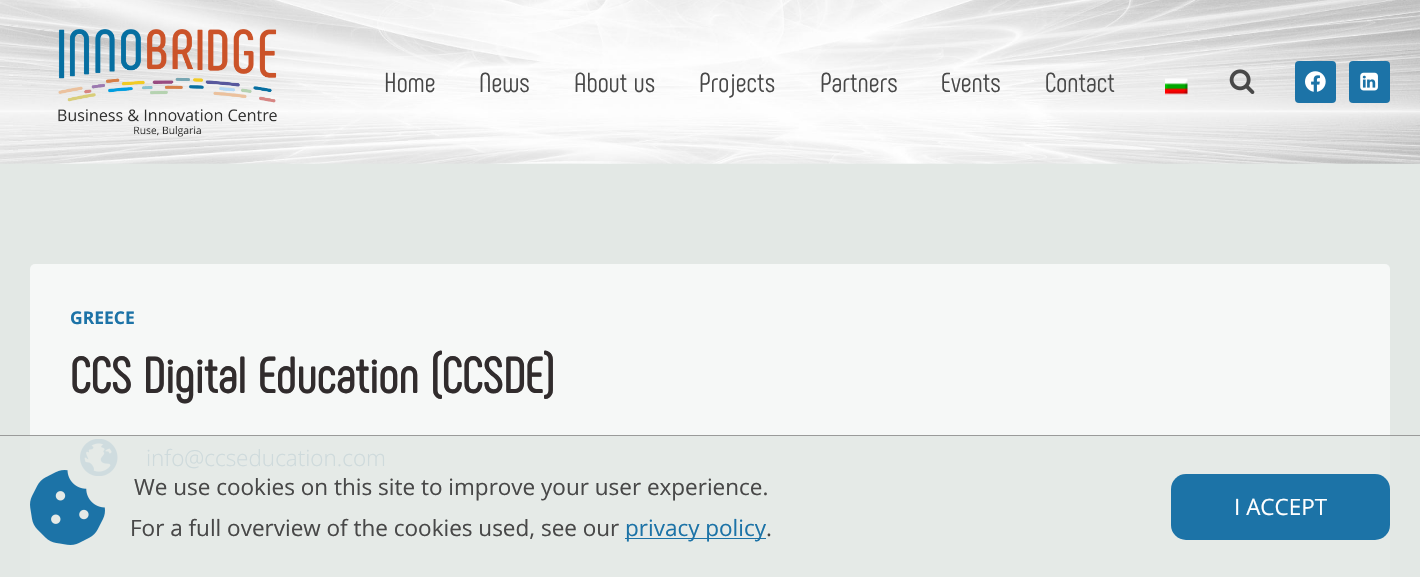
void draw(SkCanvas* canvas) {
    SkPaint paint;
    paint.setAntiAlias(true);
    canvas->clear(0xFFE3E8E5);
    canvas->drawImageRect(SkImages::DeferredFromEncodedData(SkData::MakeFromFileName("img1.png")), SkRect::MakeXYWH(0, 0, 1420, 164), SkSamplingOptions());
    canvas->drawImageRect(SkImages::DeferredFromEncodedData(SkData::MakeFromFileName("img2.png")), SkRect::MakeXYWH(58, 29, 219, 108), SkSamplingOptions());
    SkFont font1(fontMgr->matchFamilyStyle("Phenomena", SkFontStyle::Normal()), 27.5f);
    font1.setSubpixel(true);
    paint.setColor(0xFF484848);
    canvas->drawString("Home", 384, 92, font1, paint);
    canvas->drawString("News", 479, 92, font1, paint);
    canvas->drawString("About us", 574, 92, font1, paint);
    canvas->drawString("Projects", 699, 92, font1, paint);
    canvas->drawString("Partners", 820, 92, font1, paint);
    canvas->drawString("Events", 941, 92, font1, paint);
    canvas->drawString("Contact", 1045, 92, font1, paint);
    canvas->drawImageRect(SkImages::DeferredFromEncodedData(SkData::MakeFromFileName("img3.png")), SkRect::MakeXYWH(1165, 78, 23, 17), SkSamplingOptions());
    canvas->drawImageRect(SkImages::DeferredFromEncodedData(SkData::MakeFromFileName("img4.png")), SkRect::MakeXYWH(1229, 69, 26, 25), SkSamplingOptions());
    paint.setColor(0xFF1C73A7);
    canvas->drawRoundRect(SkRect::MakeXYWH(1295, 61, 41, 42), 4, 4, paint);
    canvas->drawImageRect(SkImages::DeferredFromEncodedData(SkData::MakeFromFileName("img5.png")), SkRect::MakeXYWH(1305, 71, 21, 21), SkSamplingOptions());
    canvas->drawRoundRect(SkRect::MakeXYWH(1349, 61, 41, 42), 4, 4, paint);
    canvas->drawImageRect(SkImages::DeferredFromEncodedData(SkData::MakeFromFileName("img6.png")), SkRect::MakeXYWH(1360, 72, 18, 19), SkSamplingOptions());
    paint.setColor(0xFFF6F8F7);
    canvas->drawRoundRect(SkRect::MakeXYWH(30, 264, 1360, 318), 5, 5, paint);
    paint.setColor(0xFFE5EAE7);
    canvas->drawRect(SkRect::MakeXYWH(30, 436, 1360, 141), paint);
    SkFont font2(fontMgr->matchFamilyStyle("Open Sans", SkFontStyle::Bold()), 17.5f);
    font2.setSubpixel(true);
    paint.setColor(0xFF1C73A7);
    canvas->drawString("GREECE", 70, 324, font2, paint);
    SkFont font3(fontMgr->matchFamilyStyle("Phenomena", SkFontStyle::Bold()), 50);
    font3.setSubpixel(true);
    paint.setColor(0xFF312C2D);
    canvas->drawString("CCS Digital Education (CCSDE)", 70, 393, font3, paint);
    canvas->drawImageRect(SkImages::DeferredFromEncodedData(SkData::MakeFromFileName("img7.png")), SkRect::MakeXYWH(80, 439, 38, 37), SkSamplingOptions());
    SkFont font4(fontMgr->matchFamilyStyle("Open Sans", SkFontStyle(300, SkFontStyle::kNormal_Width, SkFontStyle::kUpright_Slant)), 22.5f);
    font4.setSubpixel(true);
    paint.setColor(0xFFCEDADC);
    canvas->drawString("info@ccseducation.com", 146, 466, font4, paint);
    paint.setColor(0xFF9A9B9A);
    canvas->drawRect(SkRect::MakeXYWH(0, 435, 1420, 1), paint);
    canvas->drawImageRect(SkImages::DeferredFromEncodedData(SkData::MakeFromFileName("img8.png")), SkRect::MakeXYWH(30, 470, 75, 75), SkSamplingOptions());
    SkFont font5(fontMgr->matchFamilyStyle("Open Sans", SkFontStyle::Normal()), 22.5f);
    font5.setSubpixel(true);
    paint.setColor(0xFF484848);
    canvas->drawString("We use cookies on this site to improve your user experience.", 134, 495, font5, paint);
    canvas->drawString("For a full overview of the cookies used, see our", 130, 536, font5, paint);
    paint.setColor(0xFF1C73A7);
    canvas->drawRect(SkRect::MakeXYWH(625, 538, 141, 1), paint);
    canvas->drawString("privacy policy", 625, 536, font5, paint);
    paint.setColor(0xFF484848);
    canvas->drawString(".", 766, 536, font5, paint);
    paint.setColor(0xFF1C73A7);
    canvas->drawRoundRect(SkRect::MakeXYWH(1171, 474, 219, 66), 15, 15, paint);
    paint.setColor(0xFFFFFFFF);
    canvas->drawString("I ACCEPT", 1234, 515, font5, paint);
}
